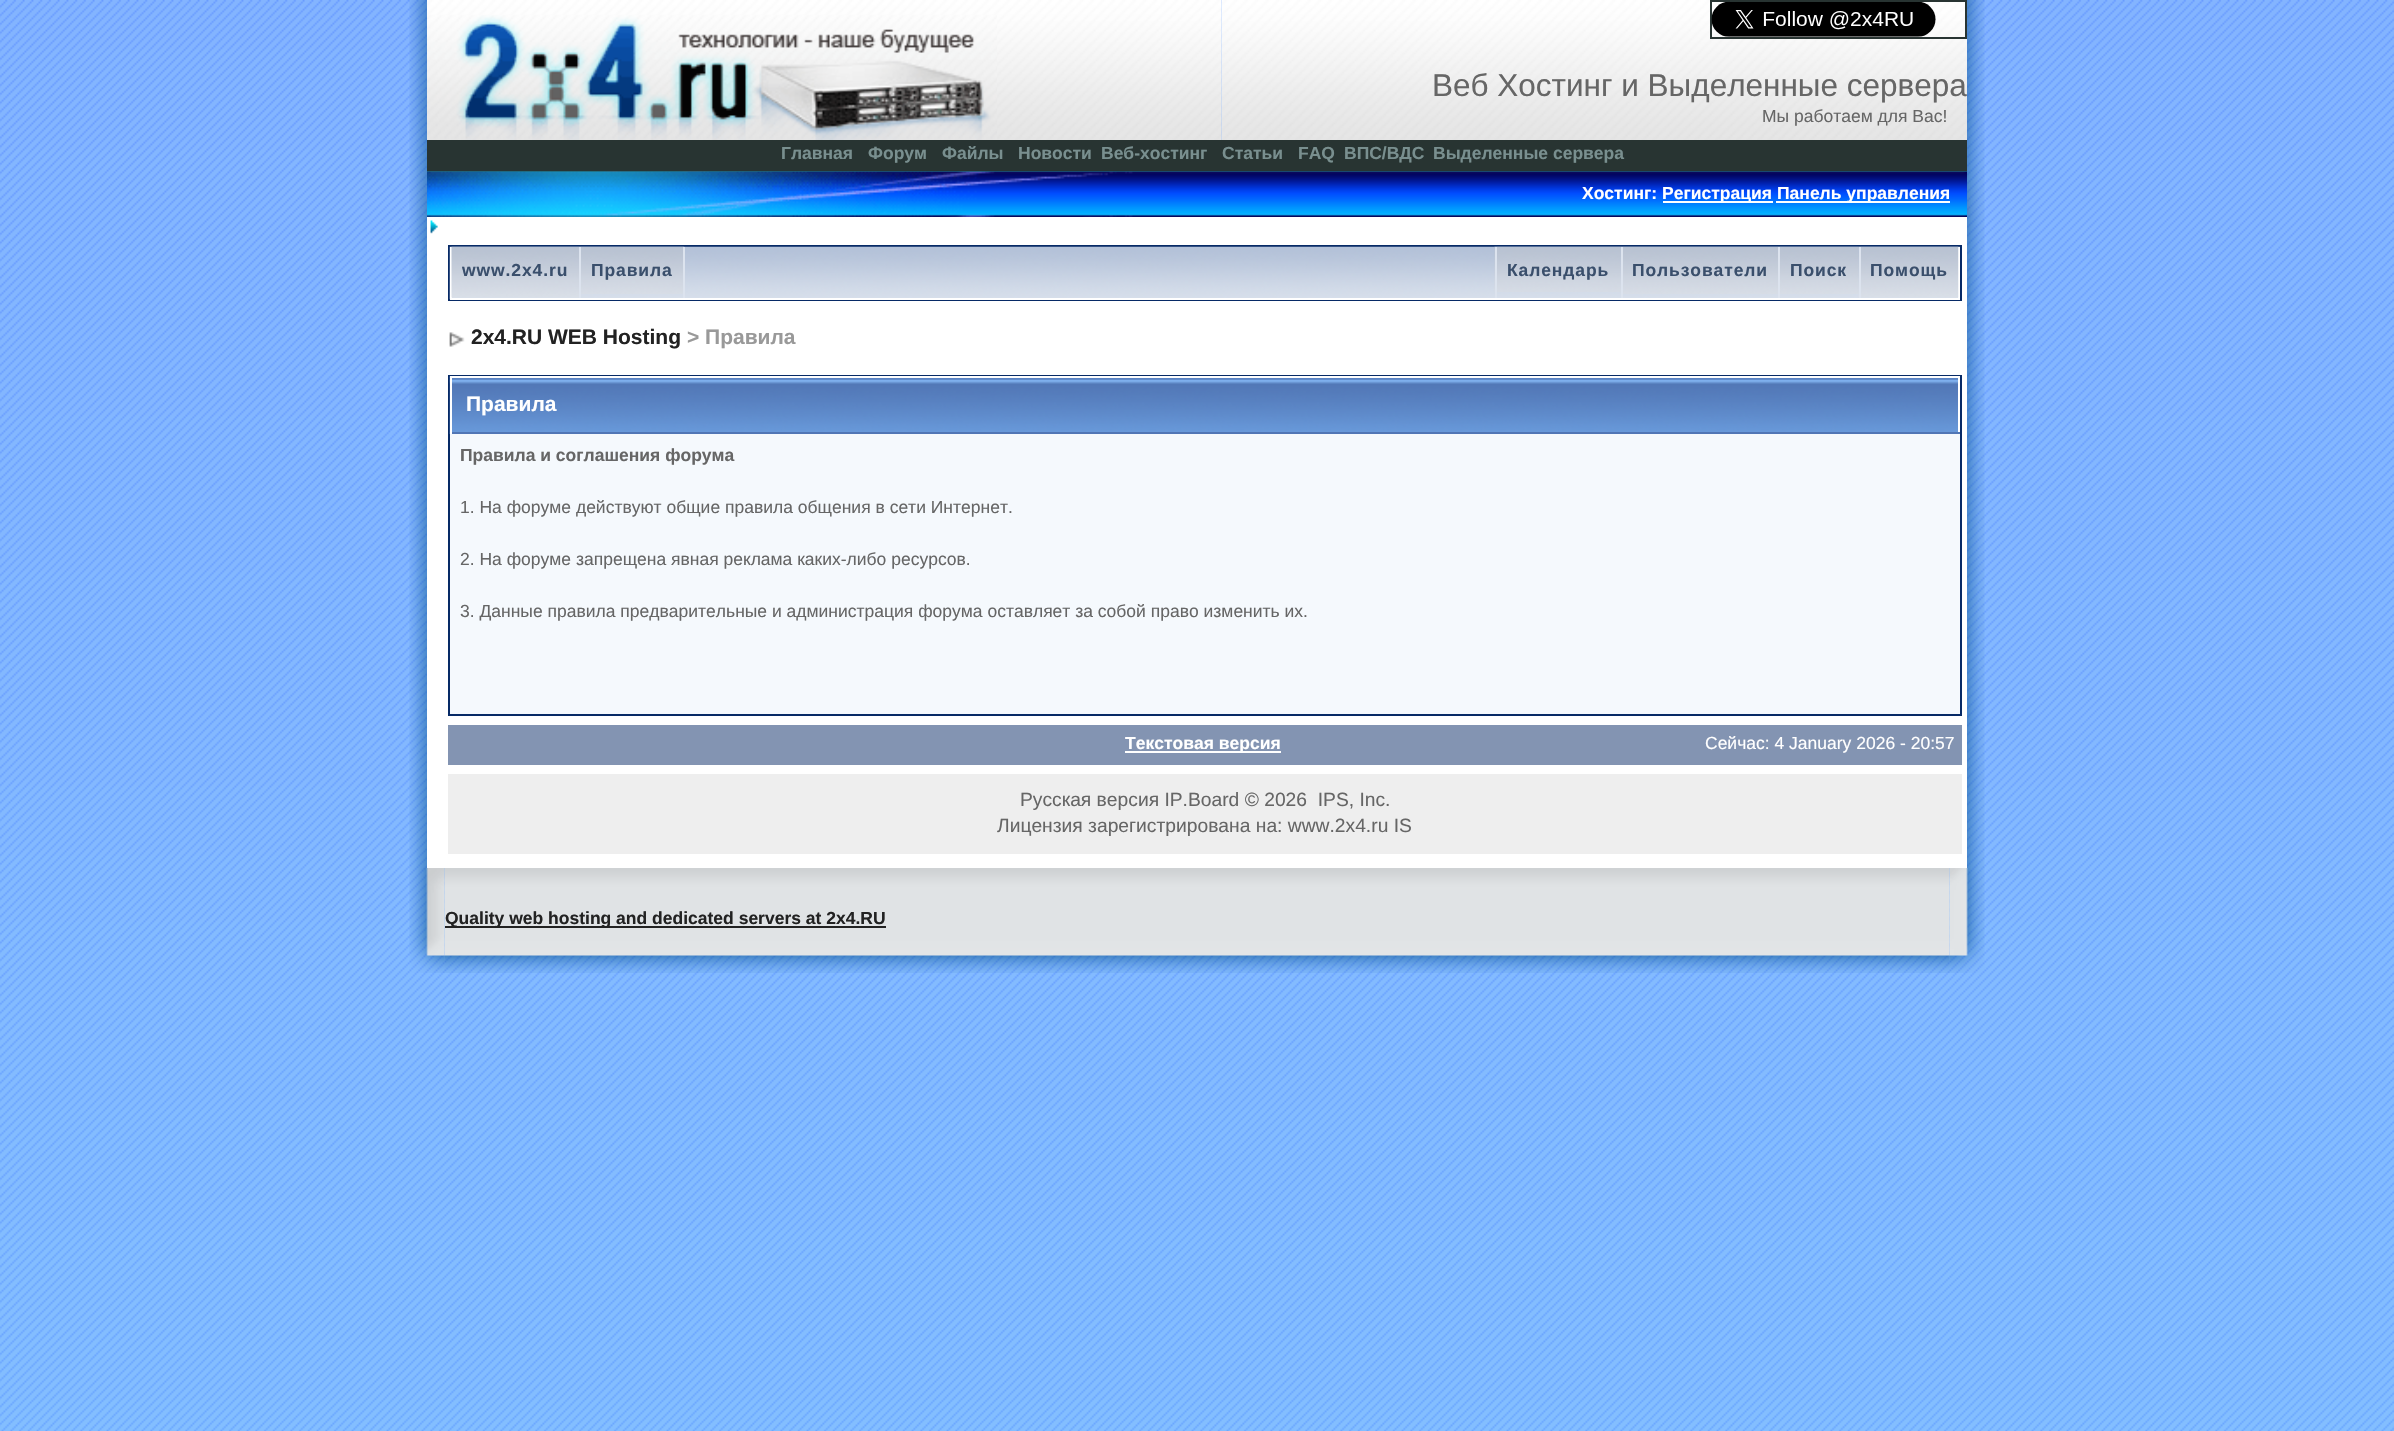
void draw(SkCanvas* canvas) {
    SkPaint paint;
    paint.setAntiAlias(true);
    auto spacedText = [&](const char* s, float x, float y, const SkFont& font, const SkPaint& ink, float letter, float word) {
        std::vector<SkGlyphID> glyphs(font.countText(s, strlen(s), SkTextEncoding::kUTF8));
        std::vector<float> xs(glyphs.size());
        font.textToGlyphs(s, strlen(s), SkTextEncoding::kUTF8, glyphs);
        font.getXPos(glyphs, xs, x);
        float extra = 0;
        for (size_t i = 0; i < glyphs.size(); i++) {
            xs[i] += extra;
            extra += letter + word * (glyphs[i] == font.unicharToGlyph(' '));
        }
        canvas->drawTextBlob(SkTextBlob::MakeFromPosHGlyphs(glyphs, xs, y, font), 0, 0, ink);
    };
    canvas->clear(0xFFFFFFFF);
    canvas->drawImageRect(SkImages::DeferredFromEncodedData(SkData::MakeFromFileName("img1.png")), SkRect::MakeXYWH(0, 0, 2394, 1431), SkSamplingOptions());
    canvas->drawImageRect(SkImages::DeferredFromEncodedData(SkData::MakeFromFileName("img2.png")), SkRect::MakeXYWH(409, 0, 18, 140), SkSamplingOptions());
    canvas->drawImageRect(SkImages::DeferredFromEncodedData(SkData::MakeFromFileName("img3.png")), SkRect::MakeXYWH(427, 0, 795, 140), SkSamplingOptions());
    canvas->drawImageRect(SkImages::DeferredFromEncodedData(SkData::MakeFromFileName("img4.png")), SkRect::MakeXYWH(427, 15, 570, 125), SkSamplingOptions());
    canvas->drawImageRect(SkImages::DeferredFromEncodedData(SkData::MakeFromFileName("img5.png")), SkRect::MakeXYWH(1221, 0, 746, 140), SkSamplingOptions());
    paint.setStyle(SkPaint::kStroke_Style);
    paint.setStrokeWidth(2);
    paint.setColor(0xFF283432);
    canvas->drawRect(SkRect::MakeXYWH(1711, 1, 255, 37), paint);
    canvas->drawImageRect(SkImages::DeferredFromEncodedData(SkData::MakeFromFileName("img6.png")), SkRect::MakeXYWH(1711, 2, 225, 35), SkSamplingOptions());
    SkFont font1(fontMgr->matchFamilyStyle("Liberation Sans", SkFontStyle::Normal()), 31.5f);
    font1.setSubpixel(true);
    paint.setStyle(SkPaint::kFill_Style);
    paint.setColor(0xFF666666);
    canvas->drawString("Веб Хостинг и Выделенные сервера", 1432, 96, font1, paint);
    SkFont font2(fontMgr->matchFamilyStyle("Liberation Sans", SkFontStyle::Normal()), 17.5f);
    font2.setSubpixel(true);
    canvas->drawString("Мы работаем для Вас!", 1762, 122, font2, paint);
    canvas->drawImageRect(SkImages::DeferredFromEncodedData(SkData::MakeFromFileName("img7.png")), SkRect::MakeXYWH(1967, 0, 18, 140), SkSamplingOptions());
    canvas->drawImageRect(SkImages::DeferredFromEncodedData(SkData::MakeFromFileName("img8.png")), SkRect::MakeXYWH(409, 140, 18, 728), SkSamplingOptions());
    paint.setColor(0xFFFFFFFF);
    canvas->drawRect(SkRect::MakeXYWH(427, 217, 1540, 651), paint);
    paint.setColor(0xFF283432);
    canvas->drawRect(SkRect::MakeXYWH(427, 140, 1540, 32), paint);
    SkFont font3(fontMgr->matchFamilyStyle("Liberation Sans", SkFontStyle::Bold()), 17.5f);
    font3.setSubpixel(true);
    paint.setColor(0xFF798F8F);
    canvas->drawString("Главная", 781, 159, font3, paint);
    canvas->drawString("Форум", 868, 159, font3, paint);
    canvas->drawString("Файлы", 942, 159, font3, paint);
    canvas->drawString("Новости", 1018, 159, font3, paint);
    canvas->drawString("Веб-хостинг", 1101, 159, font3, paint);
    canvas->drawString("Статьи", 1222, 159, font3, paint);
    canvas->drawString("FAQ", 1298, 159, font3, paint);
    canvas->drawString("ВПС/ВДС", 1344, 159, font3, paint);
    canvas->drawString("Выделенные сервера", 1433, 159, font3, paint);
    canvas->drawImageRect(SkImages::DeferredFromEncodedData(SkData::MakeFromFileName("img9.png")), SkRect::MakeXYWH(427, 171, 1540, 46), SkSamplingOptions());
    paint.setColor(0xFFFFFFFF);
    canvas->drawString("Хостинг:", 1582, 199, font3, paint);
    canvas->drawRect(SkRect::MakeXYWH(1663, 201, 110, 2), paint);
    canvas->drawString("Регистрация", 1662, 199, font3, paint);
    canvas->drawRect(SkRect::MakeXYWH(1776, 201, 174, 2), paint);
    canvas->drawString("Панель управления", 1777, 199, font3, paint);
    canvas->drawImageRect(SkImages::DeferredFromEncodedData(SkData::MakeFromFileName("img10.png")), SkRect::MakeXYWH(430, 220, 8, 14), SkSamplingOptions());
    paint.setStyle(SkPaint::kStroke_Style);
    paint.setColor(0xFF072A66);
    canvas->drawRect(SkRect::MakeXYWH(449, 246, 1512, 54), paint);
    canvas->drawImageRect(SkImages::DeferredFromEncodedData(SkData::MakeFromFileName("img11.png")), SkRect::MakeXYWH(449, 246, 1511, 54), SkSamplingOptions());
    paint.setStyle(SkPaint::kFill_Style);
    paint.setColor(0xFFFFFFFF);
    canvas->drawRect(SkRect::MakeXYWH(1958, 247, 2, 52), paint);
    canvas->drawRect(SkRect::MakeXYWH(450, 298, 1510, 2), paint);
    canvas->drawRect(SkRect::MakeXYWH(450, 247, 2, 52), paint);
    canvas->drawImageRect(SkImages::DeferredFromEncodedData(SkData::MakeFromFileName("img12.png")), SkRect::MakeXYWH(451, 246, 130, 52), SkSamplingOptions());
    paint.setColor(0xFFDCE3EE);
    canvas->drawRect(SkRect::MakeXYWH(579, 247, 2, 51), paint);
    paint.setColor(0xFF3A4F6C);
    spacedText("www.2x4.ru", 462, 276, font3, paint, 0.9f, 0);
    canvas->drawImageRect(SkImages::DeferredFromEncodedData(SkData::MakeFromFileName("img13.png")), SkRect::MakeXYWH(581, 246, 104, 48), SkSamplingOptions());
    paint.setColor(0xFFDCE3EE);
    canvas->drawRect(SkRect::MakeXYWH(683, 247, 2, 51), paint);
    paint.setColor(0xFF3A4F6C);
    spacedText("Правила", 591, 276, font3, paint, 0.9f, 0);
    canvas->drawImageRect(SkImages::DeferredFromEncodedData(SkData::MakeFromFileName("img15.png")), SkRect::MakeXYWH(1620, 246, 158, 48), SkSamplingOptions());
    canvas->drawImageRect(SkImages::DeferredFromEncodedData(SkData::MakeFromFileName("img14.png")), SkRect::MakeXYWH(1494, 246, 127, 46), SkSamplingOptions());
    paint.setColor(0xFFDCE3EE);
    canvas->drawRect(SkRect::MakeXYWH(1495, 247, 2, 51), paint);
    paint.setColor(0xFF3A4F6C);
    spacedText("Календарь", 1507, 276, font3, paint, 0.9f, 0);
    paint.setColor(0xFFDCE3EE);
    canvas->drawRect(SkRect::MakeXYWH(1621, 247, 2, 51), paint);
    paint.setColor(0xFF3A4F6C);
    spacedText("Пользователи", 1632, 276, font3, paint, 0.9f, 0);
    canvas->drawImageRect(SkImages::DeferredFromEncodedData(SkData::MakeFromFileName("img17.png")), SkRect::MakeXYWH(1858, 246, 101, 52), SkSamplingOptions());
    canvas->drawImageRect(SkImages::DeferredFromEncodedData(SkData::MakeFromFileName("img16.png")), SkRect::MakeXYWH(1778, 246, 81, 48), SkSamplingOptions());
    paint.setColor(0xFFDCE3EE);
    canvas->drawRect(SkRect::MakeXYWH(1778, 247, 2, 51), paint);
    paint.setColor(0xFF3A4F6C);
    spacedText("Поиск", 1790, 276, font3, paint, 0.9f, 0);
    paint.setColor(0xFFDCE3EE);
    canvas->drawRect(SkRect::MakeXYWH(1859, 247, 2, 51), paint);
    paint.setColor(0xFF3A4F6C);
    spacedText("Помощь", 1870, 276, font3, paint, 0.9f, 0);
    canvas->drawImageRect(SkImages::DeferredFromEncodedData(SkData::MakeFromFileName("img18.png")), SkRect::MakeXYWH(449, 332, 16, 15), SkSamplingOptions());
    SkFont font4(fontMgr->matchFamilyStyle("Liberation Sans", SkFontStyle::Bold()), 21);
    font4.setSubpixel(true);
    paint.setColor(0xFF222222);
    canvas->drawString("2x4.RU WEB Hosting", 471, 344, font4, paint);
    paint.setColor(0xFF999999);
    canvas->drawString("> Правила", 687, 344, font4, paint);
    paint.setStyle(SkPaint::kStroke_Style);
    paint.setColor(0xFF072A66);
    canvas->drawRect(SkRect::MakeXYWH(449, 376, 1512, 339), paint);
    canvas->drawImageRect(SkImages::DeferredFromEncodedData(SkData::MakeFromFileName("img19.png")), SkRect::MakeXYWH(449, 376, 1509, 58), SkSamplingOptions());
    paint.setStyle(SkPaint::kFill_Style);
    paint.setColor(0xFFFFFFFF);
    canvas->drawRect(SkRect::MakeXYWH(450, 376, 1510, 2), paint);
    paint.setColor(0xFF5176B5);
    canvas->drawRect(SkRect::MakeXYWH(450, 432, 1510, 2), paint);
    paint.setColor(0xFFFFFFFF);
    canvas->drawRect(SkRect::MakeXYWH(450, 376, 2, 58), paint);
    canvas->drawString("Правила", 466, 411, font4, paint);
    paint.setColor(0xFFF5F9FD);
    canvas->drawRect(SkRect::MakeXYWH(450, 434, 1510, 280), paint);
    paint.setColor(0xFF666666);
    canvas->drawString("Правила и соглашения форума", 460, 461, font3, paint);
    canvas->drawString("1. На форуме действуют общие правила общения в сети Интернет.", 460, 513, font2, paint);
    canvas->drawString("2. На форуме запрещена явная реклама каких-либо ресурсов.", 460, 565, font2, paint);
    canvas->drawString("3. Данные правила предварительные и администрация форума оставляет за собой право изменить их.", 460, 617, font2, paint);
    paint.setColor(0xFF8394B2);
    canvas->drawRect(SkRect::MakeXYWH(448, 725, 1514, 40), paint);
    paint.setColor(0xFFFFFFFF);
    canvas->drawRect(SkRect::MakeXYWH(1125, 751, 156, 2), paint);
    canvas->drawString("Текстовая версия", 1125, 749, font3, paint);
    canvas->drawString("Сейчас: 4 January 2026 - 20:57", 1705, 749, font2, paint);
    paint.setColor(0xFFEEEEEE);
    canvas->drawRect(SkRect::MakeXYWH(448, 774, 1514, 80), paint);
    SkFont font5(fontMgr->matchFamilyStyle("Liberation Sans", SkFontStyle::Normal()), 19.25f);
    font5.setSubpixel(true);
    paint.setColor(0xFF666666);
    canvas->drawString("Русская версия IP.Board © 2026  IPS, Inc.", 1020, 806, font5, paint);
    canvas->drawString("Лицензия зарегистрирована на: www.2x4.ru IS", 997, 832, font5, paint);
    canvas->drawImageRect(SkImages::DeferredFromEncodedData(SkData::MakeFromFileName("img20.png")), SkRect::MakeXYWH(1967, 140, 18, 728), SkSamplingOptions());
    canvas->drawImageRect(SkImages::DeferredFromEncodedData(SkData::MakeFromFileName("img22.png")), SkRect::MakeXYWH(444, 868, 1506, 105), SkSamplingOptions());
    canvas->drawImageRect(SkImages::DeferredFromEncodedData(SkData::MakeFromFileName("img21.png")), SkRect::MakeXYWH(409, 868, 36, 105), SkSamplingOptions());
    paint.setColor(0xFF222222);
    canvas->drawRect(SkRect::MakeXYWH(445, 926, 441, 2), paint);
    canvas->drawString("Quality web hosting and dedicated servers at 2x4.RU", 445, 924, font3, paint);
    canvas->drawImageRect(SkImages::DeferredFromEncodedData(SkData::MakeFromFileName("img23.png")), SkRect::MakeXYWH(1949, 868, 36, 105), SkSamplingOptions());
}
